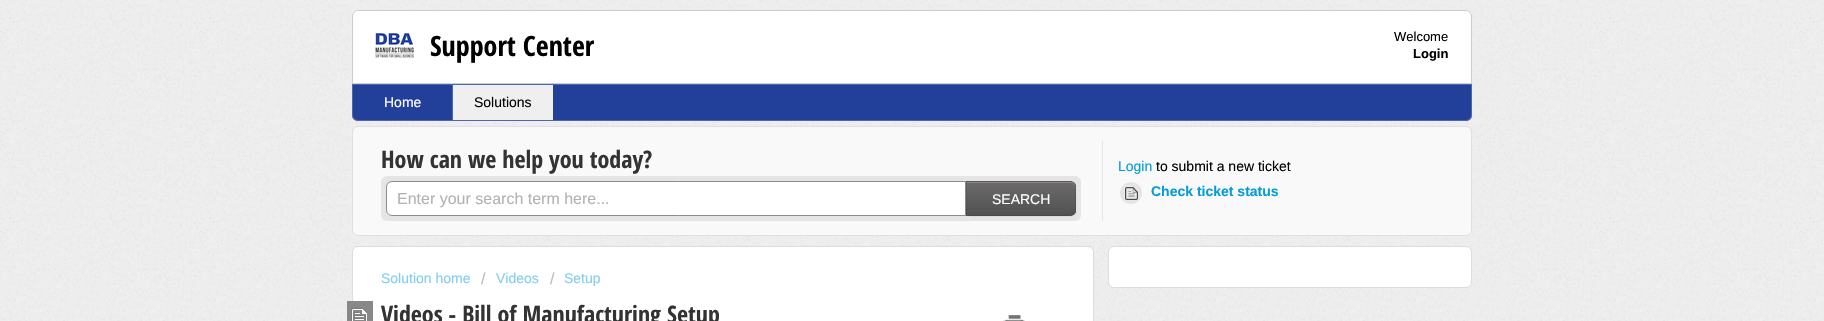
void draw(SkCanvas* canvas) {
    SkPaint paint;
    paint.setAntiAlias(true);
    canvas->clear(0xFFEFEFEF);
    canvas->drawImageRect(SkImages::DeferredFromEncodedData(SkData::MakeFromFileName("img1.png")), SkRect::MakeXYWH(0, 0, 1824, 321), SkSamplingOptions());
    paint.setColor(0xFFFFFFFF);
    canvas->drawPath(SkPathBuilder().moveTo(358, 10).lineTo(1466, 10).cubicTo(1469.5f, 10, 1472, 12.5f, 1472, 16).lineTo(1472, 84).lineTo(352, 84).lineTo(352, 16).cubicTo(352, 12.5f, 354.5f, 10, 358, 10).close().detach(), paint);
    paint.setStyle(SkPaint::kStroke_Style);
    paint.setStrokeWidth(1);
    paint.setColor(0x33000000);
    canvas->drawPath(SkPathBuilder().moveTo(358, 10.5f).lineTo(1466, 10.5f).cubicTo(1469, 10.5f, 1471.5f, 13, 1471.5f, 16).lineTo(1471.5f, 83.5f).lineTo(352.5f, 83.5f).lineTo(352.5f, 16).cubicTo(352.5f, 13, 355, 10.5f, 358, 10.5f).close().detach(), paint);
    canvas->drawImageRect(SkImages::DeferredFromEncodedData(SkData::MakeFromFileName("img2.png")), SkRect::MakeXYWH(374, 33, 41, 25), SkSamplingOptions());
    SkFont font1(fontMgr->matchFamilyStyle("Open Sans Condensed", SkFontStyle::Bold()), 28);
    font1.setSubpixel(true);
    paint.setStyle(SkPaint::kFill_Style);
    paint.setColor(0xFF000000);
    canvas->drawString("Support Center", 430, 56, font1, paint);
    SkFont font2(fontMgr->matchFamilyStyle("Liberation Sans", SkFontStyle::Normal()), 13);
    font2.setSubpixel(true);
    canvas->drawString("Welcome", 1394, 41, font2, paint);
    SkFont font3(fontMgr->matchFamilyStyle("Liberation Sans", SkFontStyle::Bold()), 13);
    font3.setSubpixel(true);
    canvas->drawString("Login", 1413, 58, font3, paint);
    paint.setColor(0xFF223F9A);
    canvas->drawPath(SkPathBuilder().moveTo(352, 84).lineTo(1472, 84).lineTo(1472, 115).cubicTo(1472, 118.5f, 1469.5f, 121, 1466, 121).lineTo(358, 121).cubicTo(354.5f, 121, 352, 118.5f, 352, 115).close().detach(), paint);
    paint.setStyle(SkPaint::kStroke_Style);
    paint.setColor(0x33FFFFFF);
    canvas->drawPath(SkPathBuilder().moveTo(352.5f, 84.5f).lineTo(1471.5f, 84.5f).lineTo(1471.5f, 115).cubicTo(1471.5f, 118, 1469, 120.5f, 1466, 120.5f).lineTo(358, 120.5f).cubicTo(355, 120.5f, 352.5f, 118, 352.5f, 115).close().detach(), paint);
    paint.setStyle(SkPaint::kFill_Style);
    paint.setColor(0xFF4E65AE);
    canvas->drawRect(SkRect::MakeXYWH(452, 85, 1, 35), paint);
    SkFont font4(fontMgr->matchFamilyStyle("Liberation Sans", SkFontStyle::Normal()), 14);
    font4.setSubpixel(true);
    paint.setColor(0xFFFFFFFF);
    canvas->drawString("Home", 384, 107, font4, paint);
    paint.setColor(0xFFEFEFEF);
    canvas->drawRect(SkRect::MakeXYWH(453, 85, 99, 35), paint);
    paint.setColor(0xFFF2F2F2);
    canvas->drawRect(SkRect::MakeXYWH(552, 85, 1, 35), paint);
    paint.setColor(0xFF000000);
    canvas->drawString("Solutions", 474, 107, font4, paint);
    paint.setColor(0xFFF9F9F9);
    canvas->drawRoundRect(SkRect::MakeXYWH(352.5f, 126.5f, 1119, 109), 5.5f, 5.5f, paint);
    paint.setStyle(SkPaint::kStroke_Style);
    paint.setColor(0xFFE0E0E0);
    canvas->drawRoundRect(SkRect::MakeXYWH(352.5f, 126.5f, 1119, 109), 5.5f, 5.5f, paint);
    paint.setStyle(SkPaint::kFill_Style);
    paint.setColor(0xFFE5E5E5);
    canvas->drawRect(SkRect::MakeXYWH(1102, 141, 1, 80), paint);
    SkFont font5(fontMgr->matchFamilyStyle("Open Sans Condensed", SkFontStyle::Bold()), 24);
    font5.setSubpixel(true);
    paint.setColor(0xFF333333);
    canvas->drawString("How can we help you today?", 381, 168, font5, paint);
    paint.setColor(0xFFE5E5E5);
    canvas->drawRoundRect(SkRect::MakeXYWH(381, 176, 700, 45), 6, 6, paint);
    paint.setColor(0xFFFFFFFF);
    canvas->drawPath(SkPathBuilder().moveTo(392, 181.5f).lineTo(965.5f, 181.5f).lineTo(965.5f, 215.5f).lineTo(392, 215.5f).cubicTo(389, 215.5f, 386.5f, 213, 386.5f, 210).lineTo(386.5f, 187).cubicTo(386.5f, 184, 389, 181.5f, 392, 181.5f).close().detach(), paint);
    paint.setStyle(SkPaint::kStroke_Style);
    paint.setColor(0xFF8C8C8C);
    canvas->drawPath(SkPathBuilder().moveTo(392, 181.5f).lineTo(965.5f, 181.5f).lineTo(965.5f, 215.5f).lineTo(392, 215.5f).cubicTo(389, 215.5f, 386.5f, 213, 386.5f, 210).lineTo(386.5f, 187).cubicTo(386.5f, 184, 389, 181.5f, 392, 181.5f).close().detach(), paint);
    SkFont font6(fontMgr->matchFamilyStyle("Liberation Sans", SkFontStyle::Normal()), 16);
    font6.setSubpixel(true);
    paint.setStyle(SkPaint::kFill_Style);
    paint.setColor(0xFFB2B2B2);
    canvas->drawString("Enter your search term here...", 397, 204, font6, paint);
    paint.setColor(0x0D000000);
    paint.setMaskFilter(SkMaskFilter::MakeBlur(kNormal_SkBlurStyle, 1));
    canvas->drawRoundRect(SkRect::MakeXYWH(966, 182, 110, 35), 6, 6, paint);
    paint.setMaskFilter(nullptr);
    paint.setColor(0xFF626060);
    canvas->drawPath(SkPathBuilder().moveTo(966, 181).lineTo(1070, 181).cubicTo(1073.5f, 181, 1076, 183.5f, 1076, 187).lineTo(1076, 210).cubicTo(1076, 213.5f, 1073.5f, 216, 1070, 216).lineTo(966, 216).close().detach(), paint);
    canvas->save();
    canvas->clipPath(SkPathBuilder().moveTo(966, 181).lineTo(1070, 181).cubicTo(1073.5f, 181, 1076, 183.5f, 1076, 187).lineTo(1076, 210).cubicTo(1076, 213.5f, 1073.5f, 216, 1070, 216).lineTo(966, 216).close().detach(), true);
    {
        const SkColor colors[] = {0xFF6C6A6A, 0xFF525151};
        const float stops[] = {0, 1};
        const SkPoint ends[] = {{1021, 182}, {1021, 215}};
        paint.setShader(SkGradientShader::MakeLinear(ends, colors, stops, 2, SkTileMode::kClamp));
        paint.setAlpha(255);
    }
    canvas->drawRect(SkRect::MakeXYWH(966, 182, 110, 33), paint);
    canvas->restore();
    paint.setShader(nullptr);
    paint.setColor(0xFF898888);
    canvas->drawPath(SkPathBuilder().moveTo(967, 183).lineTo(1070, 183).cubicTo(1073, 183, 1075, 185, 1075, 188).lineTo(1075, 187).cubicTo(1075, 184, 1073, 182, 1070, 182).lineTo(967, 182).close().detach(), paint);
    paint.setColor(0x1A000000);
    canvas->drawPath(SkPathBuilder().moveTo(966, 181).lineTo(967, 182).lineTo(1071, 182).lineTo(1074, 183).cubicTo(1073, 182, 1072, 181, 1070, 181).close().detach(), paint);
    canvas->drawPath(SkPathBuilder().moveTo(1076, 210).lineTo(1076, 187).cubicTo(1076, 185.5f, 1075, 184, 1074, 183).lineTo(1073.5f, 183.5f).cubicTo(1074.5f, 184, 1075, 185.5f, 1075, 187).lineTo(1075, 210).cubicTo(1075, 211.5f, 1074.5f, 213, 1073.5f, 213.5f).lineTo(1074, 214).cubicTo(1075, 213, 1076, 211.5f, 1076, 210).close().detach(), paint);
    paint.setColor(0x40000000);
    canvas->drawPath(SkPathBuilder().moveTo(1070, 216).cubicTo(1072, 216, 1073, 215, 1074, 214).lineTo(1071, 215).lineTo(967, 215).lineTo(966, 216).close().detach(), paint);
    paint.setColor(0x1A000000);
    canvas->drawPath(SkPathBuilder().moveTo(966, 181).lineTo(966, 216).lineTo(967, 215).lineTo(967, 182).close().detach(), paint);
    paint.setColor(0xFFFFFFFF);
    canvas->drawString("SEARCH", 992, 204, font4, paint);
    paint.setColor(0xFF049CDB);
    canvas->drawString("Login", 1118, 171, font4, paint);
    paint.setColor(0xFF000000);
    canvas->drawString("to submit a new ticket", 1156, 171, font4, paint);
    paint.setColor(0xFFE5E5E5);
    canvas->drawCircle(1131, 193, 11, paint);
    canvas->drawImageRect(SkImages::DeferredFromEncodedData(SkData::MakeFromFileName("img3.png")), SkRect::MakeXYWH(1124, 186, 14, 14), SkSamplingOptions());
    SkFont font7(fontMgr->matchFamilyStyle("Liberation Sans", SkFontStyle::Bold()), 14);
    font7.setSubpixel(true);
    paint.setColor(0xFF049CDB);
    canvas->drawString("Check ticket status", 1151, 196, font7, paint);
    paint.setColor(0xFFFFFFFF);
    canvas->drawRoundRect(SkRect::MakeXYWH(1108.5f, 246.5f, 363, 41), 5.5f, 5.5f, paint);
    paint.setStyle(SkPaint::kStroke_Style);
    paint.setColor(0xFFDCDCDC);
    canvas->drawRoundRect(SkRect::MakeXYWH(1108.5f, 246.5f, 363, 41), 5.5f, 5.5f, paint);
    paint.setStyle(SkPaint::kFill_Style);
    paint.setColor(0xFFFFFFFF);
    canvas->drawRoundRect(SkRect::MakeXYWH(352.5f, 246.5f, 741, 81), 5.5f, 5.5f, paint);
    paint.setStyle(SkPaint::kStroke_Style);
    paint.setColor(0xFFDCDCDC);
    canvas->drawRoundRect(SkRect::MakeXYWH(352.5f, 246.5f, 741, 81), 5.5f, 5.5f, paint);
    paint.setStyle(SkPaint::kFill_Style);
    paint.setColor(0xFF82CEED);
    canvas->drawString("Solution home", 381, 283, font4, paint);
    paint.setColor(0xFFBBBBBB);
    canvas->drawString("/", 481, 284, font6, paint);
    paint.setColor(0xFF82CEED);
    canvas->drawString("Videos", 496, 283, font4, paint);
    paint.setColor(0xFFBBBBBB);
    canvas->drawString("/", 550, 284, font6, paint);
    paint.setColor(0xFF82CEED);
    canvas->drawString("Setup", 564, 283, font4, paint);
    paint.setColor(0xFF888888);
    canvas->drawRect(SkRect::MakeXYWH(347, 301, 26, 20), paint);
    canvas->drawImageRect(SkImages::DeferredFromEncodedData(SkData::MakeFromFileName("img4.png")), SkRect::MakeXYWH(351, 308, 16, 13), SkSamplingOptions());
    paint.setColor(0xFF333333);
    canvas->drawString("Videos - Bill of Manufacturing Setup", 381, 323, font5, paint);
    canvas->drawImageRect(SkImages::DeferredFromEncodedData(SkData::MakeFromFileName("img5.png")), SkRect::MakeXYWH(1003, 315, 22, 6), SkSamplingOptions());
}
